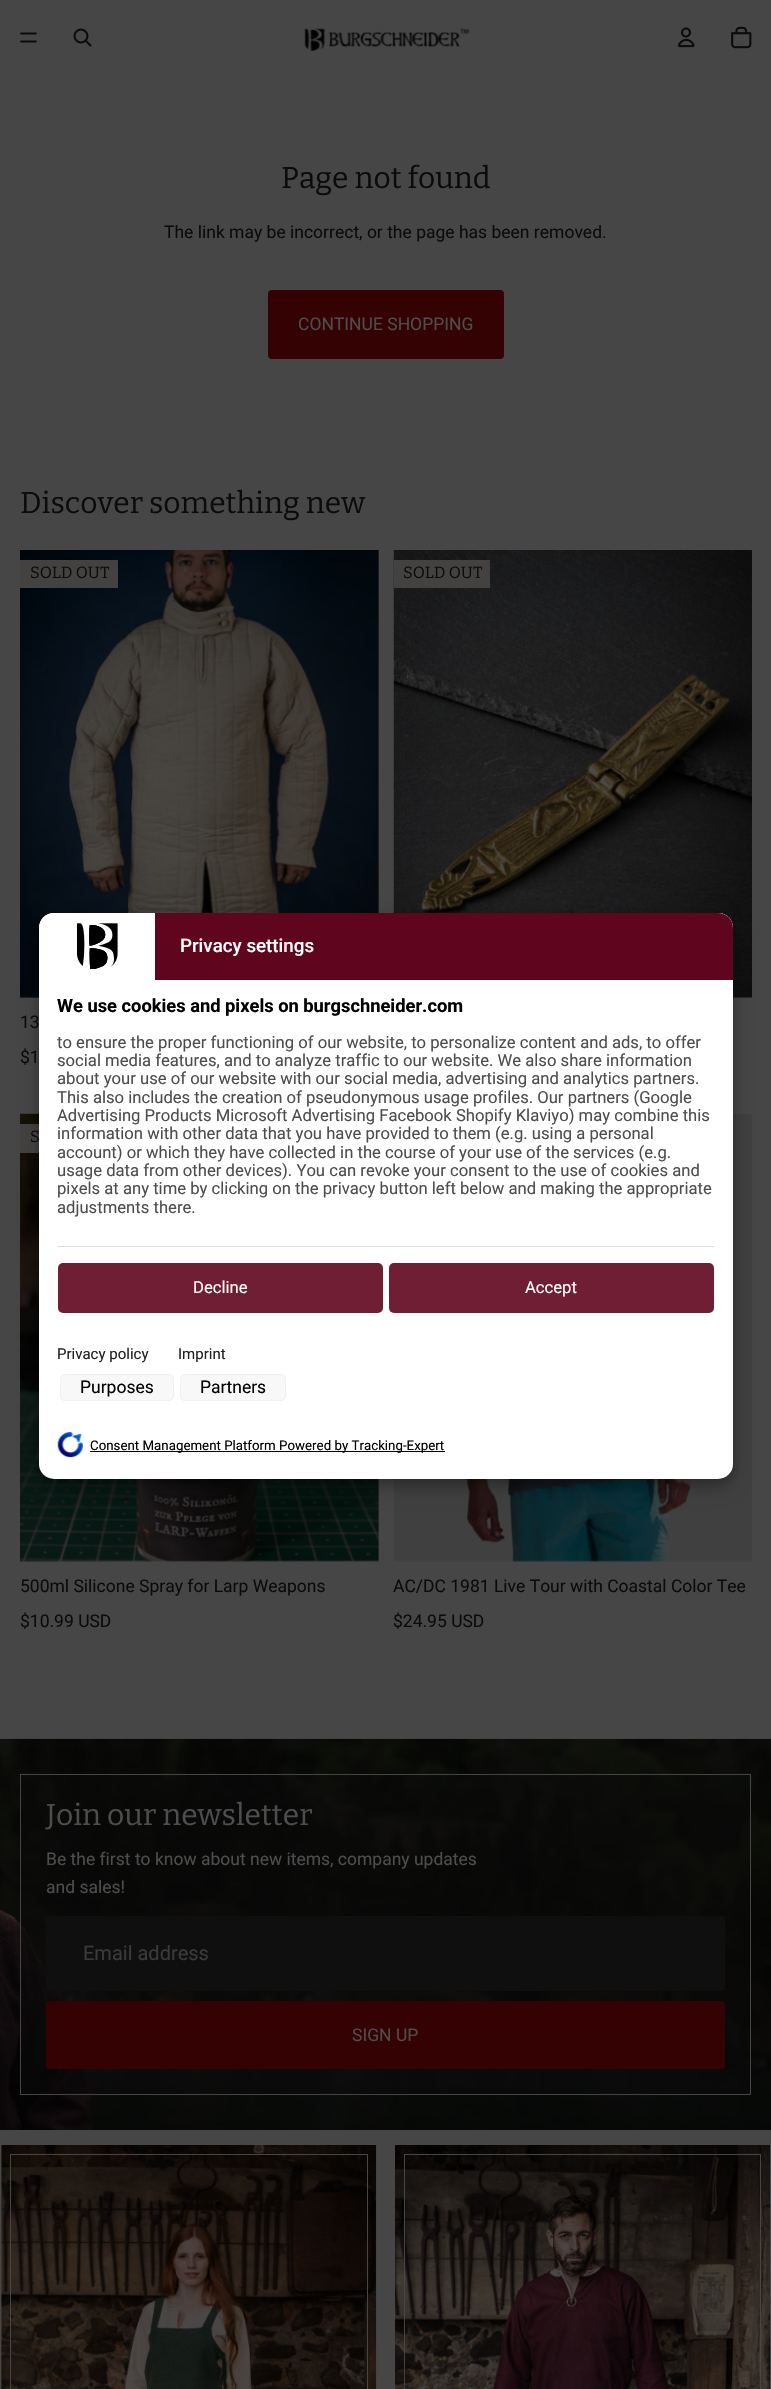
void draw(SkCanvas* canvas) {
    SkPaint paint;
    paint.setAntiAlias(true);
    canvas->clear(0xFF464646);
    paint.setStyle(SkPaint::kStroke_Style);
    paint.setStrokeWidth(1.8f);
    paint.setStrokeCap(SkPaint::kRound_Cap);
    paint.setColor(0xFF0B0B0B);
    canvas->drawPath(SkPathBuilder().moveTo(21, 33.5f).lineTo(36, 33.5f).moveTo(21, 41.5f).lineTo(36, 41.5f).detach(), paint);
    paint.setStrokeWidth(2.1f);
    paint.setStrokeCap(SkPaint::kButt_Cap);
    canvas->drawCircle(81, 36, 6.5f, paint);
    paint.setStrokeCap(SkPaint::kRound_Cap);
    paint.setStrokeJoin(SkPaint::kRound_Join);
    canvas->drawPath(SkPathBuilder().moveTo(86, 41).lineTo(90.5f, 45.5f).detach(), paint);
    canvas->drawImageRect(SkImages::DeferredFromEncodedData(SkData::MakeFromFileName("img1.png")), SkRect::MakeXYWH(304, 28, 166, 24), SkSamplingOptions());
    canvas->drawImageRect(SkImages::DeferredFromEncodedData(SkData::MakeFromFileName("img2.png")), SkRect::MakeXYWH(677, 27, 18, 21), SkSamplingOptions());
    canvas->drawImageRect(SkImages::DeferredFromEncodedData(SkData::MakeFromFileName("img3.png")), SkRect::MakeXYWH(731, 26, 21, 23), SkSamplingOptions());
    SkFont font1(fontMgr->matchFamilyStyle("Bitter", SkFontStyle::Normal()), 30);
    font1.setSubpixel(true);
    paint.setStyle(SkPaint::kFill_Style);
    canvas->drawString("Page not found", 281, 188, font1, paint);
    SkFont font2(fontMgr->matchFamilyStyle("Roboto", SkFontStyle::Normal()), 17.5f);
    font2.setSubpixel(true);
    canvas->drawString("The link may be incorrect, or the page has been removed.", 164, 238, font2, paint);
    paint.setColor(0xFF340202);
    canvas->drawRoundRect(SkRect::MakeXYWH(268, 290, 236, 69), 4, 4, paint);
    paint.setColor(0xFF4D4D4D);
    canvas->drawString("CONTINUE SHOPPING", 298, 330, font2, paint);
    paint.setColor(0xFF0B0B0B);
    canvas->drawString("Discover something new", 20, 513, font1, paint);
    canvas->drawImageRect(SkImages::DeferredFromEncodedData(SkData::MakeFromFileName("img4.png")), SkRect::MakeXYWH(20, 550, 359, 448), SkSamplingOptions());
    paint.setColor(0xFF444240);
    canvas->drawRect(SkRect::MakeXYWH(20, 560, 98, 28), paint);
    SkFont font3(fontMgr->matchFamilyStyle("Bitter", SkFontStyle::Normal()), 16.25f);
    font3.setSubpixel(true);
    paint.setColor(0xFF0B0B0B);
    canvas->drawString("SOLD OUT", 30, 578, font3, paint);
    canvas->drawString("13", 20, 1028, font2, paint);
    canvas->drawString("$1", 20, 1063, font2, paint);
    canvas->drawImageRect(SkImages::DeferredFromEncodedData(SkData::MakeFromFileName("img5.png")), SkRect::MakeXYWH(393, 550, 359, 448), SkSamplingOptions());
    paint.setColor(0xFF444240);
    canvas->drawRect(SkRect::MakeXYWH(394, 560, 96, 28), paint);
    paint.setColor(0xFF0B0B0B);
    canvas->drawString("SOLD OUT", 403, 578, font3, paint);
    canvas->drawImageRect(SkImages::DeferredFromEncodedData(SkData::MakeFromFileName("img6.png")), SkRect::MakeXYWH(20, 1113, 359, 449), SkSamplingOptions());
    paint.setColor(0xFF444240);
    canvas->drawRect(SkRect::MakeXYWH(20, 1124, 19, 29), paint);
    paint.setColor(0xFF0B0B0B);
    canvas->drawString("S", 30, 1142, font3, paint);
    canvas->drawString("500ml Silicone Spray for Larp Weapons", 20, 1592, font2, paint);
    canvas->drawString("$10.99 USD", 20, 1627, font2, paint);
    canvas->drawImageRect(SkImages::DeferredFromEncodedData(SkData::MakeFromFileName("img7.png")), SkRect::MakeXYWH(393, 1113, 359, 449), SkSamplingOptions());
    canvas->drawString("AC/DC 1981 Live Tour with Coastal Color Tee", 393, 1592, font2, paint);
    canvas->drawString("$24.95 USD", 393, 1627, font2, paint);
    paint.setColor(0x2B000000);
    paint.setMaskFilter(SkMaskFilter::MakeBlur(kNormal_SkBlurStyle, 12.5f));
    canvas->drawRoundRect(SkRect::MakeXYWH(39, 921, 694, 567), 15, 15, paint);
    paint.setMaskFilter(nullptr);
    paint.setColor(0x33000000);
    paint.setMaskFilter(SkMaskFilter::MakeBlur(kNormal_SkBlurStyle, 5));
    canvas->drawRoundRect(SkRect::MakeXYWH(39, 919, 694, 566), 15, 15, paint);
    paint.setMaskFilter(nullptr);
    paint.setColor(0xFFFFFFFF);
    canvas->drawRoundRect(SkRect::MakeXYWH(39, 913, 694, 566), 15, 15, paint);
    canvas->drawPath(SkPathBuilder().moveTo(54, 913).lineTo(718, 913).cubicTo(726.5f, 913, 733, 919.5f, 733, 928).lineTo(733, 986).lineTo(39, 986).lineTo(39, 928).cubicTo(39, 919.5f, 45.5f, 913, 54, 913).close().detach(), paint);
    canvas->drawImageRect(SkImages::DeferredFromEncodedData(SkData::MakeFromFileName("img8.png")), SkRect::MakeXYWH(76, 923, 42, 46), SkSamplingOptions());
    paint.setColor(0xFF5F051D);
    canvas->drawPath(SkPathBuilder().moveTo(155, 913).lineTo(718, 913).cubicTo(726.5f, 913, 733, 919.5f, 733, 928).lineTo(733, 980).lineTo(155, 980).close().detach(), paint);
    SkFont font4(fontMgr->matchFamilyStyle("Roboto", SkFontStyle(500, SkFontStyle::kNormal_Width, SkFontStyle::kUpright_Slant)), 18.75f);
    font4.setSubpixel(true);
    paint.setColor(0xFFFFFFFF);
    canvas->drawString("Privacy settings", 180, 952, font4, paint);
    SkFont font5(fontMgr->matchFamilyStyle("Roboto", SkFontStyle::Bold()), 18.3f);
    font5.setSubpixel(true);
    paint.setColor(0xFF000000);
    canvas->drawString("We use cookies and pixels on burgschneider.com", 57, 1012, font5, paint);
    SkFont font6(fontMgr->matchFamilyStyle("Roboto", SkFontStyle::Normal()), 16.65f);
    font6.setSubpixel(true);
    paint.setColor(0xFF4D4D4D);
    canvas->drawString("to ensure the proper functioning of our website, to personalize content and ads, to offer", 57, 1048, font6, paint);
    canvas->drawString("social media features, and to analyze traffic to our website. We also share information", 57, 1066, font6, paint);
    canvas->drawString("about your use of our website with our social media, advertising and analytics partners.", 57, 1084, font6, paint);
    canvas->drawString("This also includes the creation of pseudonymous usage profiles. Our partners (Google", 57, 1103, font6, paint);
    canvas->drawString("Advertising Products Microsoft Advertising Facebook Shopify Klaviyo) may combine this", 57, 1121, font6, paint);
    canvas->drawString("information with other data that you have provided to them (e.g. using a personal", 57, 1139, font6, paint);
    canvas->drawString("account) or which they have collected in the course of your use of the services (e.g.", 57, 1158, font6, paint);
    canvas->drawString("usage data from other devices). You can revoke your consent to the use of cookies and", 57, 1176, font6, paint);
    canvas->drawString("pixels at any time by clicking on the privacy button left below and making the appropriate", 57, 1194, font6, paint);
    canvas->drawString("adjustments there.", 57, 1213, font6, paint);
    paint.setColor(0xFFDDDDDD);
    canvas->drawRect(SkRect::MakeXYWH(58, 1246, 656, 1), paint);
    paint.setColor(0xFF6F1E34);
    canvas->drawRoundRect(SkRect::MakeXYWH(58, 1263, 325, 50), 5, 5, paint);
    paint.setColor(0xFFFFFFFF);
    canvas->drawString("Decline", 193, 1293, font6, paint);
    paint.setColor(0xFF6F1E34);
    canvas->drawRoundRect(SkRect::MakeXYWH(389, 1263, 325, 50), 5, 5, paint);
    paint.setColor(0xFFFFFFFF);
    canvas->drawString("Accept", 525, 1293, font6, paint);
    SkFont font7(fontMgr->matchFamilyStyle("Roboto", SkFontStyle::Normal()), 15);
    font7.setSubpixel(true);
    paint.setColor(0xFF212121);
    canvas->drawString("Privacy policy", 57, 1359, font7, paint);
    canvas->drawString("Imprint", 178, 1359, font7, paint);
    paint.setColor(0xFFF8F8F8);
    canvas->drawRoundRect(SkRect::MakeXYWH(60.5f, 1374.5f, 113, 26), 4.5f, 4.5f, paint);
    paint.setStyle(SkPaint::kStroke_Style);
    paint.setStrokeWidth(1);
    paint.setStrokeCap(SkPaint::kButt_Cap);
    paint.setStrokeJoin(SkPaint::kMiter_Join);
    paint.setColor(0xFFEFEFEF);
    canvas->drawRoundRect(SkRect::MakeXYWH(60.5f, 1374.5f, 113, 26), 4.5f, 4.5f, paint);
    paint.setStyle(SkPaint::kFill_Style);
    paint.setColor(0xFF000000);
    canvas->drawString("Purposes", 80, 1393, font2, paint);
    paint.setColor(0xFFF8F8F8);
    canvas->drawRoundRect(SkRect::MakeXYWH(180.5f, 1374.5f, 105, 26), 4.5f, 4.5f, paint);
    paint.setStyle(SkPaint::kStroke_Style);
    paint.setColor(0xFFEFEFEF);
    canvas->drawRoundRect(SkRect::MakeXYWH(180.5f, 1374.5f, 105, 26), 4.5f, 4.5f, paint);
    paint.setStyle(SkPaint::kFill_Style);
    paint.setColor(0xFF000000);
    canvas->drawString("Partners", 200, 1393, font2, paint);
    canvas->drawImageRect(SkImages::DeferredFromEncodedData(SkData::MakeFromFileName("img9.png")), SkRect::MakeXYWH(57, 1432, 26, 26), SkSamplingOptions());
    canvas->drawRect(SkRect::MakeXYWH(90, 1451, 355, 1), paint);
    SkFont font8(fontMgr->matchFamilyStyle("Roboto", SkFontStyle::Normal()), 13.3f);
    font8.setSubpixel(true);
    canvas->drawString("Consent Management Platform Powered by Tracking-Expert", 90, 1450, font8, paint);
    canvas->drawImageRect(SkImages::DeferredFromEncodedData(SkData::MakeFromFileName("img10.png")), SkRect::MakeXYWH(0, 1738, 771, 392), SkSamplingOptions());
    paint.setStyle(SkPaint::kStroke_Style);
    paint.setColor(0xFF454545);
    canvas->drawRect(SkRect::MakeXYWH(20.5f, 1774.5f, 730, 320), paint);
    paint.setStyle(SkPaint::kFill_Style);
    paint.setColor(0x75080808);
    canvas->drawRect(SkRect::MakeXYWH(21, 1775, 729, 319), paint);
    paint.setColor(0xFF4D4D4D);
    canvas->drawString("Join our newsletter", 46, 1825, font1, paint);
    canvas->drawString("Be the first to know about new items, company updates", 46, 1865, font2, paint);
    canvas->drawString("and sales!", 46, 1893, font2, paint);
    paint.setColor(0xFF0F0F0F);
    canvas->drawRoundRect(SkRect::MakeXYWH(46, 1916, 679, 75), 4, 4, paint);
    SkFont font9(fontMgr->matchFamilyStyle("Roboto", SkFontStyle::Normal()), 20);
    font9.setSubpixel(true);
    paint.setColor(0xFF3A3A3A);
    canvas->drawString("Email address", 83, 1960, font9, paint);
    paint.setColor(0xFF340202);
    canvas->drawRoundRect(SkRect::MakeXYWH(46, 2001, 679, 68), 4, 4, paint);
    paint.setColor(0xFF4D4D4D);
    canvas->drawString("SIGN UP", 352, 2041, font2, paint);
    canvas->drawImageRect(SkImages::DeferredFromEncodedData(SkData::MakeFromFileName("img11.png")), SkRect::MakeXYWH(1, 2145, 376, 244), SkSamplingOptions());
    paint.setStyle(SkPaint::kStroke_Style);
    paint.setColor(0xFF464646);
    canvas->drawRect(SkRect::MakeXYWH(10.5f, 2154.5f, 357, 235), paint);
    paint.setStyle(SkPaint::kFill_Style);
    {
        const SkColor colors[] = {0x57000000, 0x00000000};
        const float stops[] = {0, 0.44f};
        const SkPoint ends[] = {{-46, 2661}, {423, 2192}};
        paint.setShader(SkGradientShader::MakeLinear(ends, colors, stops, 2, SkTileMode::kClamp));
        paint.setAlpha(255);
    }
    canvas->drawRect(SkRect::MakeXYWH(1, 2350, 34, 39), paint);
    canvas->drawImageRect(SkImages::DeferredFromEncodedData(SkData::MakeFromFileName("img12.png")), SkRect::MakeXYWH(395, 2145, 375, 244), SkSamplingOptions());
    paint.setStyle(SkPaint::kStroke_Style);
    paint.setShader(nullptr);
    paint.setColor(0xFF464646);
    canvas->drawRect(SkRect::MakeXYWH(404.5f, 2154.5f, 356, 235), paint);
    paint.setStyle(SkPaint::kFill_Style);
    {
        const SkColor colors[] = {0x57000000, 0x00000000};
        const float stops[] = {0, 0.44f};
        const SkPoint ends[] = {{348, 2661}, {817, 2192}};
        paint.setShader(SkGradientShader::MakeLinear(ends, colors, stops, 2, SkTileMode::kClamp));
        paint.setAlpha(255);
    }
    canvas->drawRect(SkRect::MakeXYWH(395, 2350, 41, 39), paint);
}
